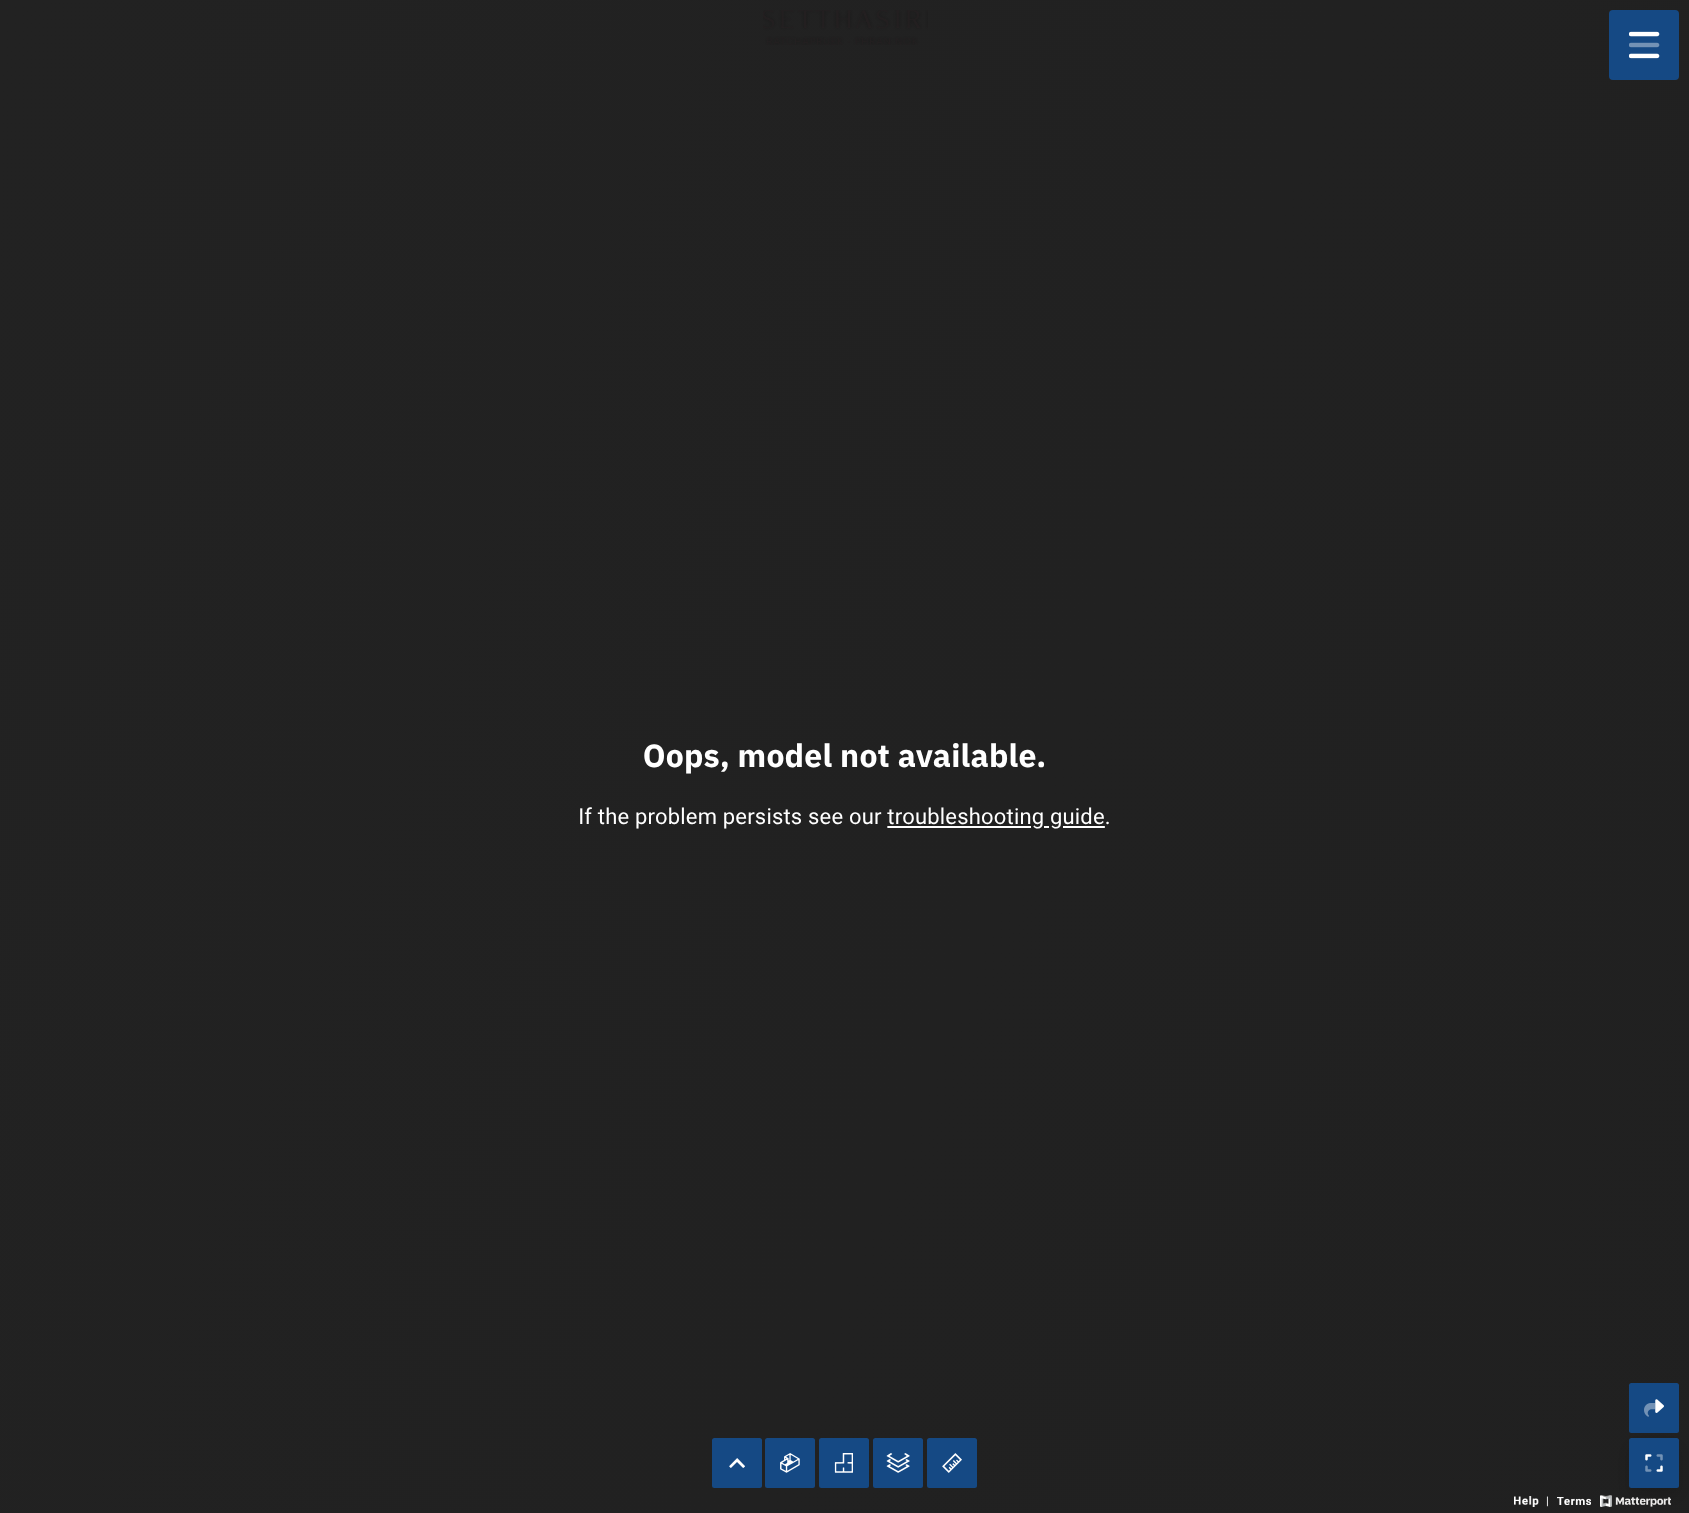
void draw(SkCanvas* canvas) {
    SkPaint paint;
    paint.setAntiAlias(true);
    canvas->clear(0xFFFFFFFF);
    canvas->drawImageRect(SkImages::DeferredFromEncodedData(SkData::MakeFromFileName("img1.png")), SkRect::MakeXYWH(0, 0, 1689, 1513), SkSamplingOptions());
    canvas->drawImageRect(SkImages::DeferredFromEncodedData(SkData::MakeFromFileName("img2.png")), SkRect::MakeXYWH(763, 10, 165, 35), SkSamplingOptions());
    paint.setColor(0xFF154984);
    canvas->drawRoundRect(SkRect::MakeXYWH(1609, 10, 70, 70), 4, 4, paint);
    canvas->drawImageRect(SkImages::DeferredFromEncodedData(SkData::MakeFromFileName("img3.png")), SkRect::MakeXYWH(1629, 31, 31, 28), SkSamplingOptions());
    canvas->drawRoundRect(SkRect::MakeXYWH(712, 1438, 50, 50), 2.5f, 2.5f, paint);
    canvas->drawImageRect(SkImages::DeferredFromEncodedData(SkData::MakeFromFileName("img4.png")), SkRect::MakeXYWH(729, 1458, 16, 10), SkSamplingOptions());
    canvas->drawRoundRect(SkRect::MakeXYWH(765, 1438, 50, 50), 2.5f, 2.5f, paint);
    canvas->drawImageRect(SkImages::DeferredFromEncodedData(SkData::MakeFromFileName("img5.png")), SkRect::MakeXYWH(780, 1453, 20, 20), SkSamplingOptions());
    canvas->drawRoundRect(SkRect::MakeXYWH(819, 1438, 50, 50), 2.5f, 2.5f, paint);
    canvas->drawImageRect(SkImages::DeferredFromEncodedData(SkData::MakeFromFileName("img6.png")), SkRect::MakeXYWH(834, 1453, 19, 20), SkSamplingOptions());
    canvas->drawRoundRect(SkRect::MakeXYWH(873, 1438, 50, 50), 2.5f, 2.5f, paint);
    canvas->drawImageRect(SkImages::DeferredFromEncodedData(SkData::MakeFromFileName("img7.png")), SkRect::MakeXYWH(886, 1453, 24, 20), SkSamplingOptions());
    canvas->drawRoundRect(SkRect::MakeXYWH(927, 1438, 50, 50), 2.5f, 2.5f, paint);
    canvas->drawImageRect(SkImages::DeferredFromEncodedData(SkData::MakeFromFileName("img8.png")), SkRect::MakeXYWH(942, 1453, 20, 20), SkSamplingOptions());
    canvas->drawRoundRect(SkRect::MakeXYWH(1629, 1383, 50, 50), 2.5f, 2.5f, paint);
    canvas->drawImageRect(SkImages::DeferredFromEncodedData(SkData::MakeFromFileName("img9.png")), SkRect::MakeXYWH(1644, 1399, 20, 18), SkSamplingOptions());
    canvas->drawImageRect(SkImages::DeferredFromEncodedData(SkData::MakeFromFileName("img13.png")), SkRect::MakeXYWH(1600, 1495, 71, 12), SkSamplingOptions());
    paint.setColor(0x26000000);
    paint.setMaskFilter(SkMaskFilter::MakeBlur(kNormal_SkBlurStyle, 8));
    canvas->drawRoundRect(SkRect::MakeXYWH(1629, 1446, 50, 50), 2.5f, 2.5f, paint);
    paint.setMaskFilter(nullptr);
    paint.setColor(0xFF154984);
    canvas->drawRoundRect(SkRect::MakeXYWH(1629, 1438, 50, 50), 2.5f, 2.5f, paint);
    canvas->drawImageRect(SkImages::DeferredFromEncodedData(SkData::MakeFromFileName("img10.png")), SkRect::MakeXYWH(1645, 1454, 18, 18), SkSamplingOptions());
    canvas->drawImageRect(SkImages::DeferredFromEncodedData(SkData::MakeFromFileName("img11.png")), SkRect::MakeXYWH(1514, 1496, 34, 11), SkSamplingOptions());
    canvas->drawImageRect(SkImages::DeferredFromEncodedData(SkData::MakeFromFileName("img12.png")), SkRect::MakeXYWH(1557, 1497, 34, 8), SkSamplingOptions());
}
